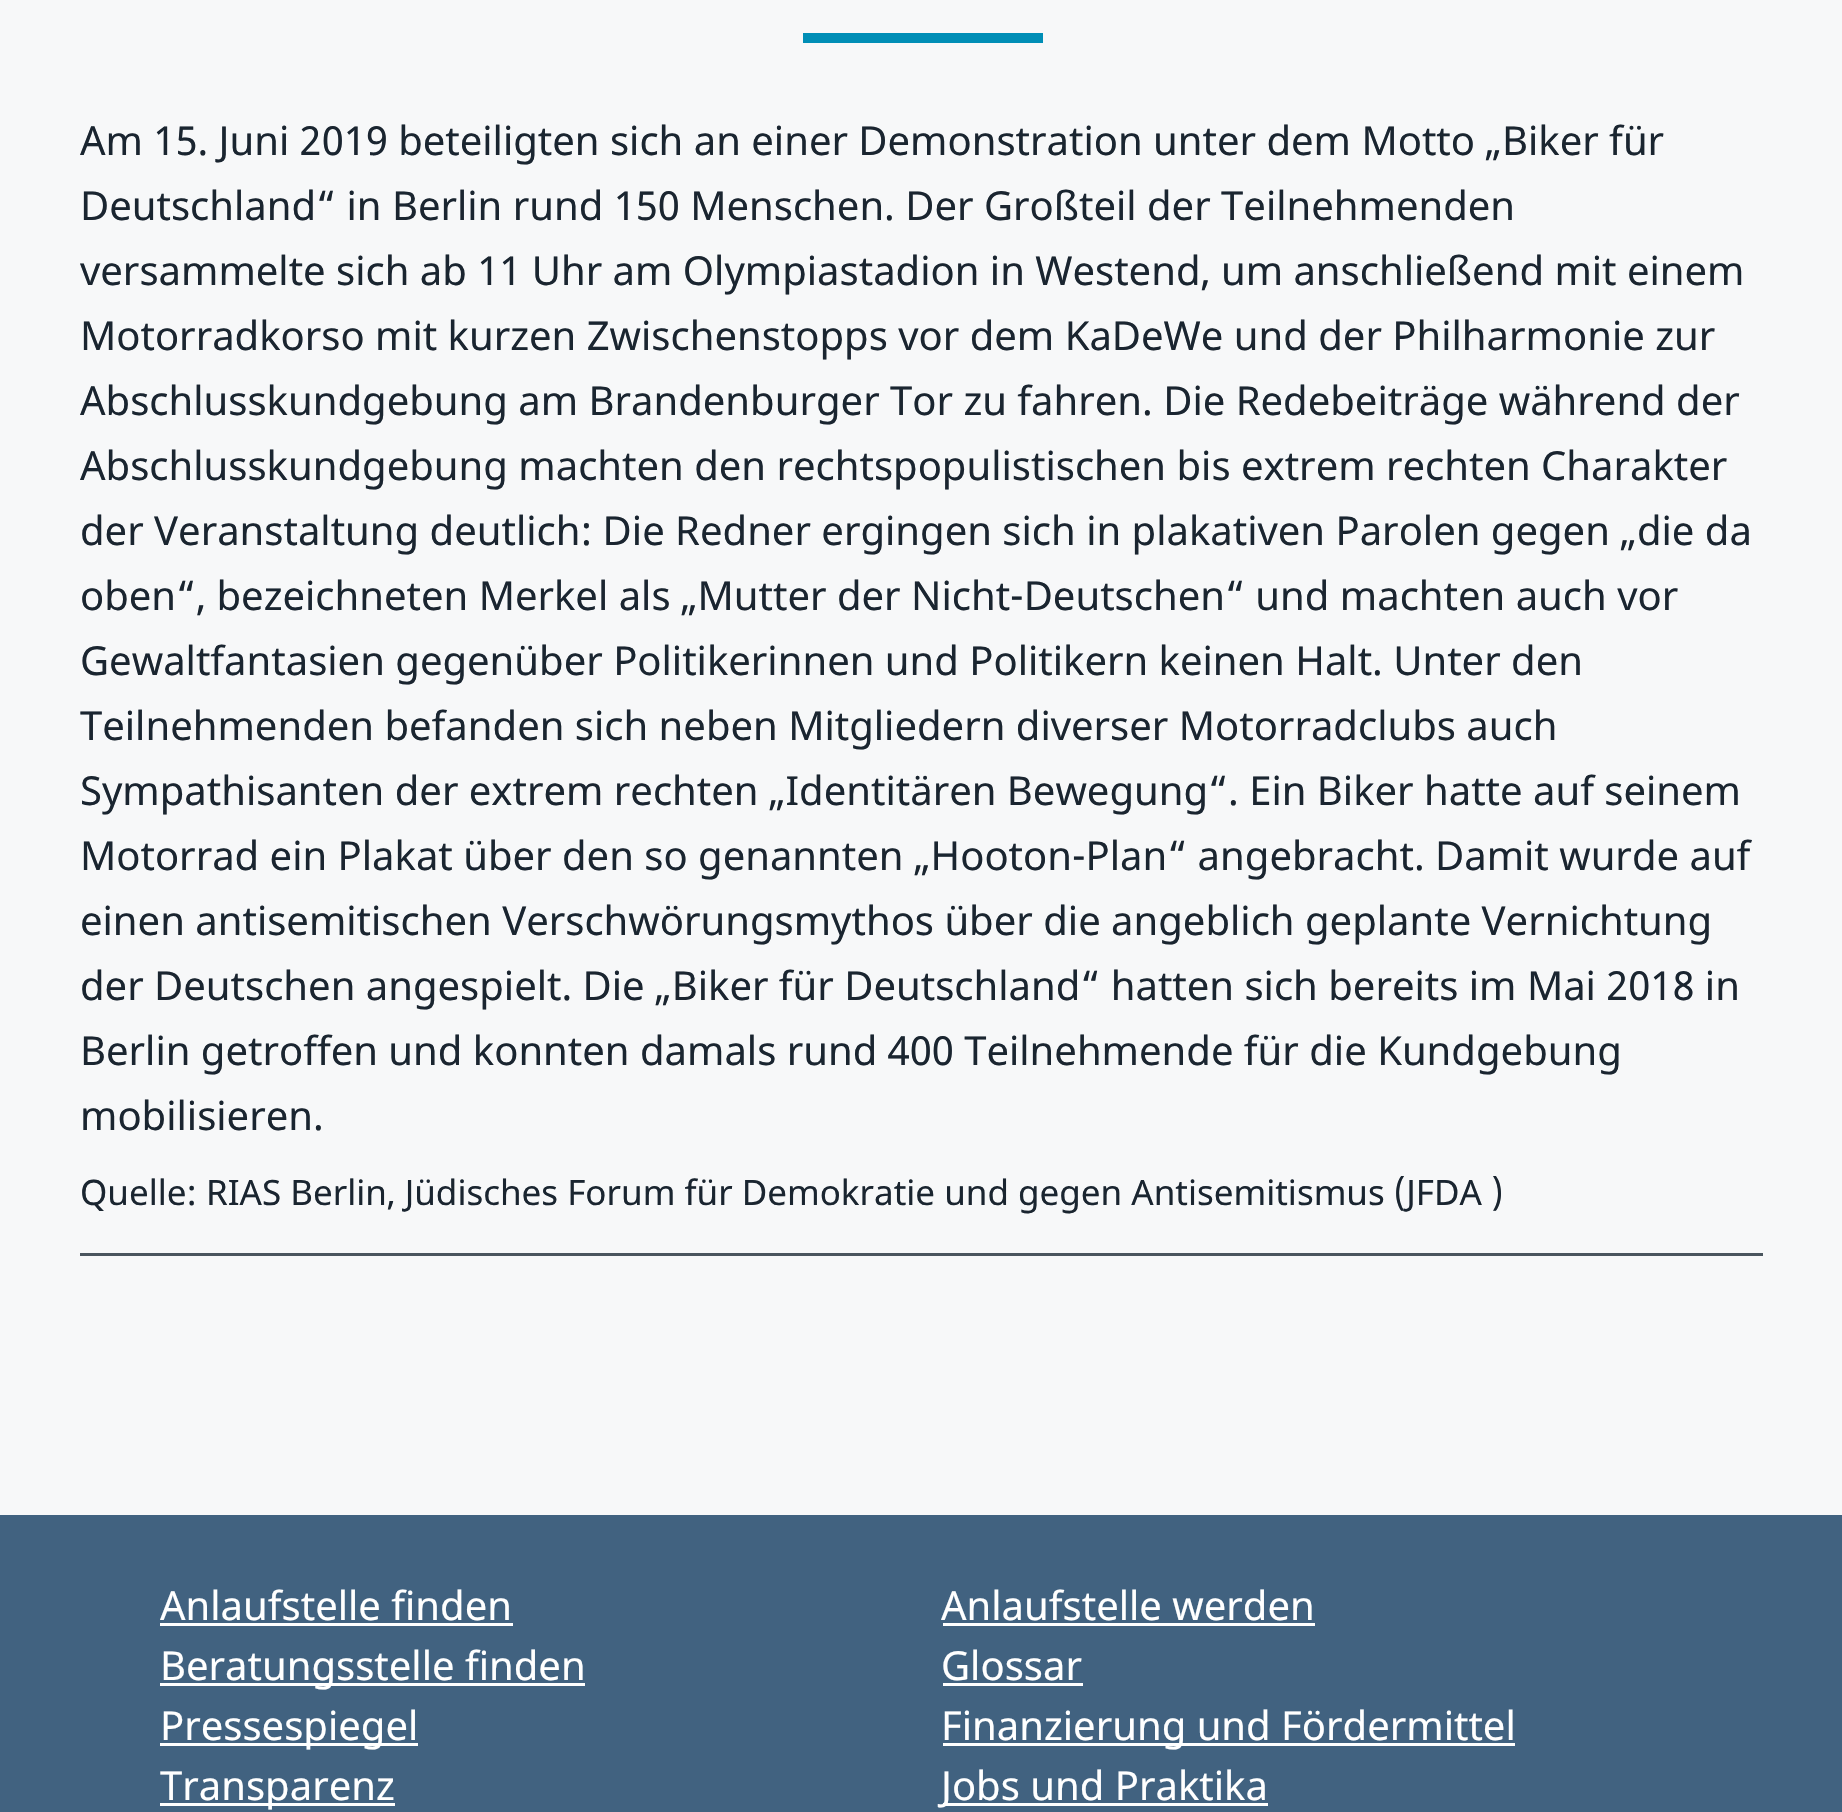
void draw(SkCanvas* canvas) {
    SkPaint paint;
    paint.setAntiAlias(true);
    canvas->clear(0xFFF7F8F9);
    paint.setColor(0xFF008EB6);
    canvas->drawRect(SkRect::MakeXYWH(803, 33, 240, 10), paint);
    SkFont font1(fontMgr->matchFamilyStyle("Noto Sans", SkFontStyle::Normal()), 40);
    font1.setSubpixel(true);
    paint.setColor(0xFF1A2530);
    canvas->drawString("Am 15. Juni 2019 beteiligten sich an einer Demonstration unter dem Motto „Biker für", 80, 155, font1, paint);
    canvas->drawString("Deutschland“ in Berlin rund 150 Menschen. Der Großteil der Teilnehmenden", 80, 220, font1, paint);
    canvas->drawString("versammelte sich ab 11 Uhr am Olympiastadion in Westend, um anschließend mit einem", 80, 285, font1, paint);
    canvas->drawString("Motorradkorso mit kurzen Zwischenstopps vor dem KaDeWe und der Philharmonie zur", 80, 350, font1, paint);
    canvas->drawString("Abschlusskundgebung am Brandenburger Tor zu fahren. Die Redebeiträge während der", 80, 415, font1, paint);
    canvas->drawString("Abschlusskundgebung machten den rechtspopulistischen bis extrem rechten Charakter", 80, 480, font1, paint);
    canvas->drawString("der Veranstaltung deutlich: Die Redner ergingen sich in plakativen Parolen gegen „die da", 80, 545, font1, paint);
    canvas->drawString("oben“, bezeichneten Merkel als „Mutter der Nicht-Deutschen“ und machten auch vor", 80, 610, font1, paint);
    canvas->drawString("Gewaltfantasien gegenüber Politikerinnen und Politikern keinen Halt. Unter den", 80, 675, font1, paint);
    canvas->drawString("Teilnehmenden befanden sich neben Mitgliedern diverser Motorradclubs auch", 80, 740, font1, paint);
    canvas->drawString("Sympathisanten der extrem rechten „Identitären Bewegung“. Ein Biker hatte auf seinem", 80, 805, font1, paint);
    canvas->drawString("Motorrad ein Plakat über den so genannten „Hooton-Plan“ angebracht. Damit wurde auf", 80, 870, font1, paint);
    canvas->drawString("einen antisemitischen Verschwörungsmythos über die angeblich geplante Vernichtung", 80, 935, font1, paint);
    canvas->drawString("der Deutschen angespielt. Die „Biker für Deutschland“ hatten sich bereits im Mai 2018 in", 80, 1000, font1, paint);
    canvas->drawString("Berlin getroffen und konnten damals rund 400 Teilnehmende für die Kundgebung", 80, 1065, font1, paint);
    canvas->drawString("mobilisieren.", 80, 1130, font1, paint);
    SkFont font2(fontMgr->matchFamilyStyle("Noto Sans", SkFontStyle::Normal()), 35);
    font2.setSubpixel(true);
    canvas->drawString("Quelle: RIAS Berlin, Jüdisches Forum für Demokratie und gegen Antisemitismus (JFDA )", 80, 1205, font2, paint);
    paint.setColor(0xFF4A555E);
    canvas->drawRect(SkRect::MakeXYWH(80, 1253, 1683, 3), paint);
    paint.setColor(0xFF416280);
    canvas->drawRect(SkRect::MakeXYWH(0, 1515, 1842, 297), paint);
    paint.setColor(0xFFFFFFFF);
    canvas->drawString("Anlaufstelle finden", 160, 1620, font1, paint);
    canvas->drawRect(SkRect::MakeXYWH(160, 1623, 353, 3), paint);
    canvas->drawString("Anlaufstelle werden", 941, 1620, font1, paint);
    canvas->drawRect(SkRect::MakeXYWH(943, 1623, 372, 3), paint);
    canvas->drawRect(SkRect::MakeXYWH(160, 1683, 425, 3), paint);
    canvas->drawString("Beratungsstelle finden", 160, 1680, font1, paint);
    canvas->drawString("Glossar", 941, 1680, font1, paint);
    canvas->drawRect(SkRect::MakeXYWH(943, 1683, 140, 3), paint);
    canvas->drawRect(SkRect::MakeXYWH(160, 1743, 258, 3), paint);
    canvas->drawString("Pressespiegel", 160, 1740, font1, paint);
    canvas->drawRect(SkRect::MakeXYWH(943, 1743, 572, 3), paint);
    canvas->drawString("Finanzierung und Fördermittel", 941, 1740, font1, paint);
    canvas->drawRect(SkRect::MakeXYWH(160, 1803, 235, 3), paint);
    canvas->drawString("Transparenz", 160, 1800, font1, paint);
    canvas->drawRect(SkRect::MakeXYWH(943, 1803, 325, 3), paint);
    canvas->drawString("Jobs und Praktika", 941, 1800, font1, paint);
}
